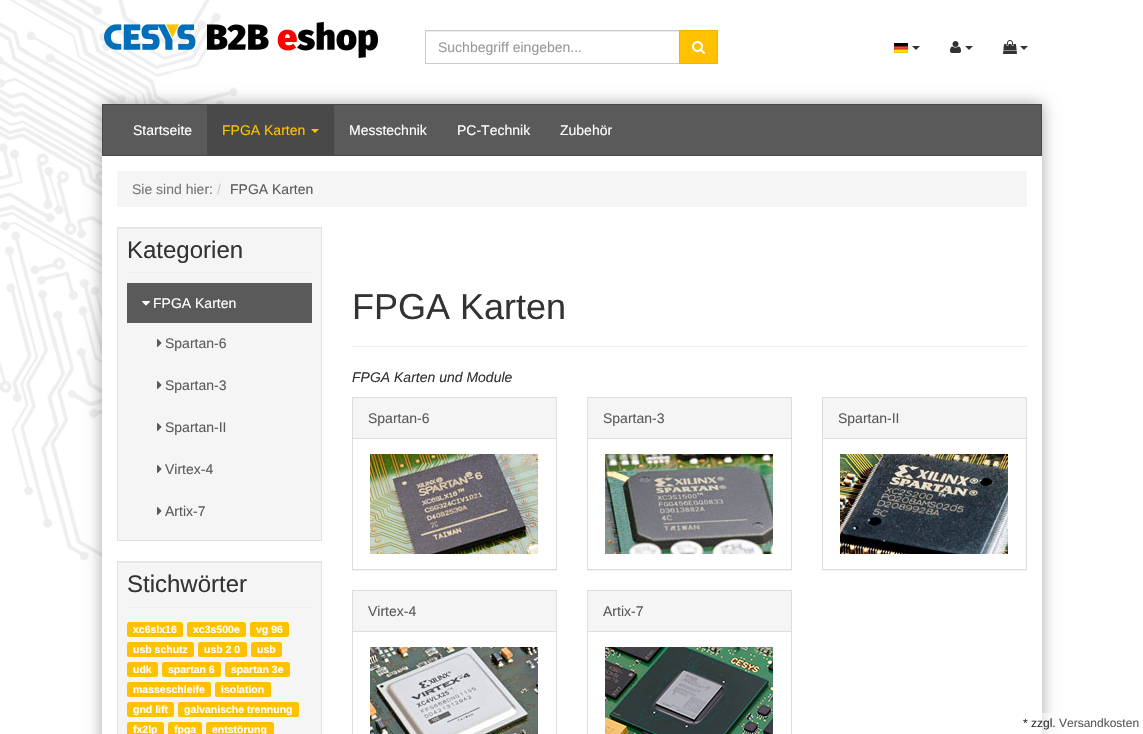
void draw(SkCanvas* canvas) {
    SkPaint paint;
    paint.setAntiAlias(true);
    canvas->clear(0xFFFFFFFF);
    canvas->drawImageRect(SkImages::DeferredFromEncodedData(SkData::MakeFromFileName("img1.png")), SkRect::MakeXYWH(0, 0, 238, 561), SkSamplingOptions());
    canvas->drawImageRect(SkImages::DeferredFromEncodedData(SkData::MakeFromFileName("img2.png")), SkRect::MakeXYWH(104, 22, 274, 36), SkSamplingOptions());
    paint.setColor(0xFFECECEC);
    canvas->drawRect(SkRect::MakeXYWH(426, 31, 253, 1), paint);
    paint.setStyle(SkPaint::kStroke_Style);
    paint.setStrokeWidth(1);
    paint.setColor(0xFFCCCCCC);
    canvas->drawRect(SkRect::MakeXYWH(425.5f, 30.5f, 254, 33), paint);
    SkFont font1(fontMgr->matchFamilyStyle("Liberation Sans", SkFontStyle::Normal()), 14);
    font1.setSubpixel(true);
    paint.setStyle(SkPaint::kFill_Style);
    paint.setColor(0xFF999999);
    canvas->drawString("Suchbegriff eingeben...", 438, 52, font1, paint);
    paint.setColor(0xFFFFC100);
    canvas->drawRect(SkRect::MakeXYWH(679.5f, 30.5f, 38, 33), paint);
    paint.setStyle(SkPaint::kStroke_Style);
    paint.setColor(0xFFF2B400);
    canvas->drawRect(SkRect::MakeXYWH(679.5f, 30.5f, 38, 33), paint);
    canvas->drawImageRect(SkImages::DeferredFromEncodedData(SkData::MakeFromFileName("img3.png")), SkRect::MakeXYWH(692, 41, 13, 13), SkSamplingOptions());
    canvas->drawImageRect(SkImages::DeferredFromEncodedData(SkData::MakeFromFileName("img4.png")), SkRect::MakeXYWH(894, 43, 14, 10), SkSamplingOptions());
    paint.setStyle(SkPaint::kFill_Style);
    paint.setColor(0xFF333333);
    canvas->drawPath(SkPathBuilder().moveTo(912, 46).lineTo(920, 46).lineTo(916, 50).close().detach(), paint);
    canvas->drawImageRect(SkImages::DeferredFromEncodedData(SkData::MakeFromFileName("img5.png")), SkRect::MakeXYWH(950, 41, 11, 12), SkSamplingOptions());
    canvas->drawPath(SkPathBuilder().moveTo(965, 46).lineTo(973, 46).lineTo(969, 50).close().detach(), paint);
    canvas->drawImageRect(SkImages::DeferredFromEncodedData(SkData::MakeFromFileName("img6.png")), SkRect::MakeXYWH(1003, 40, 14, 14), SkSamplingOptions());
    canvas->drawPath(SkPathBuilder().moveTo(1020, 46).lineTo(1028, 46).lineTo(1024, 50).close().detach(), paint);
    paint.setColor(0x59000000);
    paint.setMaskFilter(SkMaskFilter::MakeBlur(kNormal_SkBlurStyle, 7.5f));
    canvas->drawRect(SkRect::MakeXYWH(102, 104, 940, 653), paint);
    paint.setMaskFilter(nullptr);
    paint.setColor(0xFF5A5A5A);
    canvas->drawRect(SkRect::MakeXYWH(102.5f, 104.5f, 939, 51), paint);
    paint.setStyle(SkPaint::kStroke_Style);
    paint.setColor(0xFF494949);
    canvas->drawRect(SkRect::MakeXYWH(102.5f, 104.5f, 939, 51), paint);
    paint.setStyle(SkPaint::kFill_Style);
    paint.setColor(0xFFFFFFFF);
    canvas->drawString("Startseite", 133, 135, font1, paint);
    paint.setColor(0xFF494949);
    canvas->drawRect(SkRect::MakeXYWH(207, 105, 127, 50), paint);
    paint.setColor(0xFFFFC100);
    canvas->drawString("FPGA Karten", 222, 135, font1, paint);
    canvas->drawPath(SkPathBuilder().moveTo(311, 129).lineTo(319, 129).lineTo(315, 133).close().detach(), paint);
    paint.setColor(0xFFFFFFFF);
    canvas->drawString("Messtechnik", 349, 135, font1, paint);
    canvas->drawString("PC-Technik", 457, 135, font1, paint);
    canvas->drawString("Zubehör", 560, 135, font1, paint);
    canvas->drawRect(SkRect::MakeXYWH(102, 156, 940, 578), paint);
    paint.setColor(0xFFF5F5F5);
    canvas->drawRect(SkRect::MakeXYWH(117, 171, 910, 36), paint);
    paint.setColor(0xFF777777);
    canvas->drawString("Sie sind hier:", 132, 194, font1, paint);
    paint.setColor(0xFFCCCCCC);
    canvas->drawString("/", 217, 194, font1, paint);
    paint.setColor(0xFF5A5A5A);
    canvas->drawString("FPGA Karten", 230, 194, font1, paint);
    paint.setColor(0xFFF5F5F5);
    canvas->drawRect(SkRect::MakeXYWH(118, 229, 203, 311), paint);
    paint.setColor(0xFFE9E9E9);
    canvas->drawRect(SkRect::MakeXYWH(118, 228, 203, 1), paint);
    paint.setStyle(SkPaint::kStroke_Style);
    paint.setColor(0xFFE3E3E3);
    canvas->drawRect(SkRect::MakeXYWH(117.5f, 227.5f, 204, 313), paint);
    paint.setStyle(SkPaint::kFill_Style);
    paint.setColor(0xFFEEEEEE);
    canvas->drawRect(SkRect::MakeXYWH(127, 272, 185, 1), paint);
    SkFont font2(fontMgr->matchFamilyStyle("Liberation Sans", SkFontStyle::Normal()), 24);
    font2.setSubpixel(true);
    paint.setColor(0xFF333333);
    canvas->drawString("Kategorien", 127, 258, font2, paint);
    paint.setColor(0xFF5A5A5A);
    canvas->drawRect(SkRect::MakeXYWH(127, 283, 185, 40), paint);
    canvas->drawImageRect(SkImages::DeferredFromEncodedData(SkData::MakeFromFileName("img7.png")), SkRect::MakeXYWH(142, 301, 8, 5), SkSamplingOptions());
    paint.setColor(0xFFFFFFFF);
    canvas->drawString("FPGA Karten", 153, 308, font1, paint);
    canvas->drawImageRect(SkImages::DeferredFromEncodedData(SkData::MakeFromFileName("img8.png")), SkRect::MakeXYWH(157, 339, 5, 8), SkSamplingOptions());
    paint.setColor(0xFF5A5A5A);
    canvas->drawString("Spartan-6", 165, 348, font1, paint);
    canvas->drawImageRect(SkImages::DeferredFromEncodedData(SkData::MakeFromFileName("img8.png")), SkRect::MakeXYWH(157, 381, 5, 8), SkSamplingOptions());
    canvas->drawString("Spartan-3", 165, 390, font1, paint);
    canvas->drawImageRect(SkImages::DeferredFromEncodedData(SkData::MakeFromFileName("img8.png")), SkRect::MakeXYWH(157, 423, 5, 8), SkSamplingOptions());
    canvas->drawString("Spartan-II", 165, 432, font1, paint);
    canvas->drawImageRect(SkImages::DeferredFromEncodedData(SkData::MakeFromFileName("img8.png")), SkRect::MakeXYWH(157, 465, 5, 8), SkSamplingOptions());
    canvas->drawString("Virtex-4", 165, 474, font1, paint);
    canvas->drawImageRect(SkImages::DeferredFromEncodedData(SkData::MakeFromFileName("img8.png")), SkRect::MakeXYWH(157, 507, 5, 8), SkSamplingOptions());
    canvas->drawString("Artix-7", 165, 516, font1, paint);
    paint.setColor(0xFFF5F5F5);
    canvas->drawRect(SkRect::MakeXYWH(118, 563, 203, 171), paint);
    paint.setColor(0xFFE9E9E9);
    canvas->drawRect(SkRect::MakeXYWH(118, 562, 203, 1), paint);
    paint.setStyle(SkPaint::kStroke_Style);
    paint.setColor(0xFFE3E3E3);
    canvas->drawRect(SkRect::MakeXYWH(117.5f, 561.5f, 204, 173), paint);
    paint.setStyle(SkPaint::kFill_Style);
    paint.setColor(0xFFEEEEEE);
    canvas->drawRect(SkRect::MakeXYWH(127, 607, 185, 1), paint);
    paint.setColor(0xFF333333);
    canvas->drawString("Stichwörter", 127, 592, font2, paint);
    paint.setColor(0xFFFFC100);
    canvas->drawRoundRect(SkRect::MakeXYWH(127, 622, 56, 15), 2.5f, 2.5f, paint);
    SkFont font3(fontMgr->matchFamilyStyle("Liberation Sans", SkFontStyle::Bold()), 10.5f);
    font3.setSubpixel(true);
    paint.setColor(0xFFFFFFFF);
    canvas->drawString("xc6slx16", 133, 633, font3, paint);
    paint.setColor(0xFFFFC100);
    canvas->drawRoundRect(SkRect::MakeXYWH(187, 622, 59, 15), 2.5f, 2.5f, paint);
    paint.setColor(0xFFFFFFFF);
    canvas->drawString("xc3s500e", 193, 633, font3, paint);
    paint.setColor(0xFFFFC100);
    canvas->drawRoundRect(SkRect::MakeXYWH(250, 622, 39, 15), 2.5f, 2.5f, paint);
    paint.setColor(0xFFFFFFFF);
    canvas->drawString("vg 96", 256, 633, font3, paint);
    paint.setColor(0xFFFFC100);
    canvas->drawRoundRect(SkRect::MakeXYWH(127, 642, 67, 15), 2.5f, 2.5f, paint);
    paint.setColor(0xFFFFFFFF);
    canvas->drawString("usb schutz", 133, 653, font3, paint);
    paint.setColor(0xFFFFC100);
    canvas->drawRoundRect(SkRect::MakeXYWH(198, 642, 49, 15), 2.5f, 2.5f, paint);
    paint.setColor(0xFFFFFFFF);
    canvas->drawString("usb 2 0", 204, 653, font3, paint);
    paint.setColor(0xFFFFC100);
    canvas->drawRoundRect(SkRect::MakeXYWH(251, 642, 31, 15), 2.5f, 2.5f, paint);
    paint.setColor(0xFFFFFFFF);
    canvas->drawString("usb", 257, 653, font3, paint);
    paint.setColor(0xFFFFC100);
    canvas->drawRoundRect(SkRect::MakeXYWH(127, 662, 31, 15), 2.5f, 2.5f, paint);
    paint.setColor(0xFFFFFFFF);
    canvas->drawString("udk", 133, 673, font3, paint);
    paint.setColor(0xFFFFC100);
    canvas->drawRoundRect(SkRect::MakeXYWH(162, 662, 59, 15), 2.5f, 2.5f, paint);
    paint.setColor(0xFFFFFFFF);
    canvas->drawString("spartan 6", 168, 673, font3, paint);
    paint.setColor(0xFFFFC100);
    canvas->drawRoundRect(SkRect::MakeXYWH(225, 662, 65, 15), 2.5f, 2.5f, paint);
    paint.setColor(0xFFFFFFFF);
    canvas->drawString("spartan 3e", 231, 673, font3, paint);
    paint.setColor(0xFFFFC100);
    canvas->drawRoundRect(SkRect::MakeXYWH(127, 682, 84, 15), 2.5f, 2.5f, paint);
    paint.setColor(0xFFFFFFFF);
    canvas->drawString("masseschleife", 133, 693, font3, paint);
    paint.setColor(0xFFFFC100);
    canvas->drawRoundRect(SkRect::MakeXYWH(215, 682, 56, 15), 2.5f, 2.5f, paint);
    paint.setColor(0xFFFFFFFF);
    canvas->drawString("isolation", 221, 693, font3, paint);
    paint.setColor(0xFFFFC100);
    canvas->drawRoundRect(SkRect::MakeXYWH(127, 702, 47, 15), 2.5f, 2.5f, paint);
    paint.setColor(0xFFFFFFFF);
    canvas->drawString("gnd lift", 133, 713, font3, paint);
    paint.setColor(0xFFFFC100);
    canvas->drawRoundRect(SkRect::MakeXYWH(178, 702, 121, 15), 2.5f, 2.5f, paint);
    paint.setColor(0xFFFFFFFF);
    canvas->drawString("galvanische trennung", 184, 713, font3, paint);
    paint.setColor(0xFFFFC100);
    canvas->drawRoundRect(SkRect::MakeXYWH(127, 722, 37, 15), 2.5f, 2.5f, paint);
    paint.setColor(0xFFFFFFFF);
    canvas->drawString("fx2lp", 133, 733, font3, paint);
    paint.setColor(0xFFFFC100);
    canvas->drawRoundRect(SkRect::MakeXYWH(168, 722, 34, 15), 2.5f, 2.5f, paint);
    paint.setColor(0xFFFFFFFF);
    canvas->drawString("fpga", 174, 733, font3, paint);
    paint.setColor(0xFFFFC100);
    canvas->drawRoundRect(SkRect::MakeXYWH(206, 722, 68, 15), 2.5f, 2.5f, paint);
    paint.setColor(0xFFFFFFFF);
    canvas->drawString("entstörung", 212, 733, font3, paint);
    paint.setColor(0xFFEEEEEE);
    canvas->drawRect(SkRect::MakeXYWH(352, 346, 675, 1), paint);
    SkFont font4(fontMgr->matchFamilyStyle("Liberation Sans", SkFontStyle::Normal()), 36);
    font4.setSubpixel(true);
    paint.setColor(0xFF333333);
    canvas->drawString("FPGA Karten", 352, 319, font4, paint);
    SkFont font5(fontMgr->matchFamilyStyle("Liberation Sans", SkFontStyle::Italic()), 14);
    font5.setSubpixel(true);
    canvas->drawString("FPGA Karten und Module", 352, 382, font5, paint);
    canvas->save();
    canvas->clipRect(SkRect::MakeXYWH(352, 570, 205, 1));
    paint.setColor(0x0D000000);
    paint.setMaskFilter(SkMaskFilter::MakeBlur(kNormal_SkBlurStyle, 0.5f));
    canvas->drawRect(SkRect::MakeXYWH(352, 398, 205, 173), paint);
    paint.setMaskFilter(nullptr);
    canvas->restore();
    paint.setStyle(SkPaint::kStroke_Style);
    paint.setColor(0xFFDDDDDD);
    canvas->drawRect(SkRect::MakeXYWH(352.5f, 397.5f, 204, 172), paint);
    paint.setStyle(SkPaint::kFill_Style);
    paint.setColor(0xFFF5F5F5);
    canvas->drawRect(SkRect::MakeXYWH(353, 398, 203, 40), paint);
    paint.setColor(0xFFDDDDDD);
    canvas->drawRect(SkRect::MakeXYWH(353, 438, 203, 1), paint);
    paint.setColor(0xFF5A5A5A);
    canvas->drawString("Spartan-6", 368, 423, font1, paint);
    canvas->drawImageRect(SkImages::DeferredFromEncodedData(SkData::MakeFromFileName("img9.png")), SkRect::MakeXYWH(370, 454, 168, 100), SkSamplingOptions());
    canvas->save();
    canvas->clipRect(SkRect::MakeXYWH(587, 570, 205, 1));
    paint.setColor(0x0D000000);
    paint.setMaskFilter(SkMaskFilter::MakeBlur(kNormal_SkBlurStyle, 0.5f));
    canvas->drawRect(SkRect::MakeXYWH(587, 398, 205, 173), paint);
    paint.setMaskFilter(nullptr);
    canvas->restore();
    paint.setStyle(SkPaint::kStroke_Style);
    paint.setColor(0xFFDDDDDD);
    canvas->drawRect(SkRect::MakeXYWH(587.5f, 397.5f, 204, 172), paint);
    paint.setStyle(SkPaint::kFill_Style);
    paint.setColor(0xFFF5F5F5);
    canvas->drawRect(SkRect::MakeXYWH(588, 398, 203, 40), paint);
    paint.setColor(0xFFDDDDDD);
    canvas->drawRect(SkRect::MakeXYWH(588, 438, 203, 1), paint);
    paint.setColor(0xFF5A5A5A);
    canvas->drawString("Spartan-3", 603, 423, font1, paint);
    canvas->drawImageRect(SkImages::DeferredFromEncodedData(SkData::MakeFromFileName("img10.png")), SkRect::MakeXYWH(605, 454, 168, 100), SkSamplingOptions());
    canvas->save();
    canvas->clipRect(SkRect::MakeXYWH(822, 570, 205, 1));
    paint.setColor(0x0D000000);
    paint.setMaskFilter(SkMaskFilter::MakeBlur(kNormal_SkBlurStyle, 0.5f));
    canvas->drawRect(SkRect::MakeXYWH(822, 398, 205, 173), paint);
    paint.setMaskFilter(nullptr);
    canvas->restore();
    paint.setStyle(SkPaint::kStroke_Style);
    paint.setColor(0xFFDDDDDD);
    canvas->drawRect(SkRect::MakeXYWH(822.5f, 397.5f, 204, 172), paint);
    paint.setStyle(SkPaint::kFill_Style);
    paint.setColor(0xFFF5F5F5);
    canvas->drawRect(SkRect::MakeXYWH(823, 398, 203, 40), paint);
    paint.setColor(0xFFDDDDDD);
    canvas->drawRect(SkRect::MakeXYWH(823, 438, 203, 1), paint);
    paint.setColor(0xFF5A5A5A);
    canvas->drawString("Spartan-II", 838, 423, font1, paint);
    canvas->drawImageRect(SkImages::DeferredFromEncodedData(SkData::MakeFromFileName("img11.png")), SkRect::MakeXYWH(840, 454, 168, 100), SkSamplingOptions());
    paint.setStyle(SkPaint::kStroke_Style);
    paint.setColor(0xFFDDDDDD);
    canvas->drawRect(SkRect::MakeXYWH(352.5f, 590.5f, 204, 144), paint);
    paint.setStyle(SkPaint::kFill_Style);
    paint.setColor(0xFFF5F5F5);
    canvas->drawRect(SkRect::MakeXYWH(353, 591, 203, 40), paint);
    paint.setColor(0xFFDDDDDD);
    canvas->drawRect(SkRect::MakeXYWH(353, 631, 203, 1), paint);
    paint.setColor(0xFF5A5A5A);
    canvas->drawString("Virtex-4", 368, 616, font1, paint);
    canvas->drawImageRect(SkImages::DeferredFromEncodedData(SkData::MakeFromFileName("img12.png")), SkRect::MakeXYWH(370, 647, 168, 87), SkSamplingOptions());
    paint.setStyle(SkPaint::kStroke_Style);
    paint.setColor(0xFFDDDDDD);
    canvas->drawRect(SkRect::MakeXYWH(587.5f, 590.5f, 204, 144), paint);
    paint.setStyle(SkPaint::kFill_Style);
    paint.setColor(0xFFF5F5F5);
    canvas->drawRect(SkRect::MakeXYWH(588, 591, 203, 40), paint);
    paint.setColor(0xFFDDDDDD);
    canvas->drawRect(SkRect::MakeXYWH(588, 631, 203, 1), paint);
    paint.setColor(0xFF5A5A5A);
    canvas->drawString("Artix-7", 603, 616, font1, paint);
    canvas->drawImageRect(SkImages::DeferredFromEncodedData(SkData::MakeFromFileName("img13.png")), SkRect::MakeXYWH(605, 647, 168, 87), SkSamplingOptions());
    paint.setColor(0x80FFFFFF);
    canvas->drawRect(SkRect::MakeXYWH(1042, 713, 12, 21), paint);
    SkFont font6(fontMgr->matchFamilyStyle("Liberation Sans", SkFontStyle::Normal()), 12);
    font6.setSubpixel(true);
    paint.setColor(0xFF333333);
    canvas->drawString("* zzgl.", 1023, 727, font6, paint);
    paint.setColor(0xFF5A5A5A);
    canvas->drawString("Versandkosten", 1059, 727, font6, paint);
}
